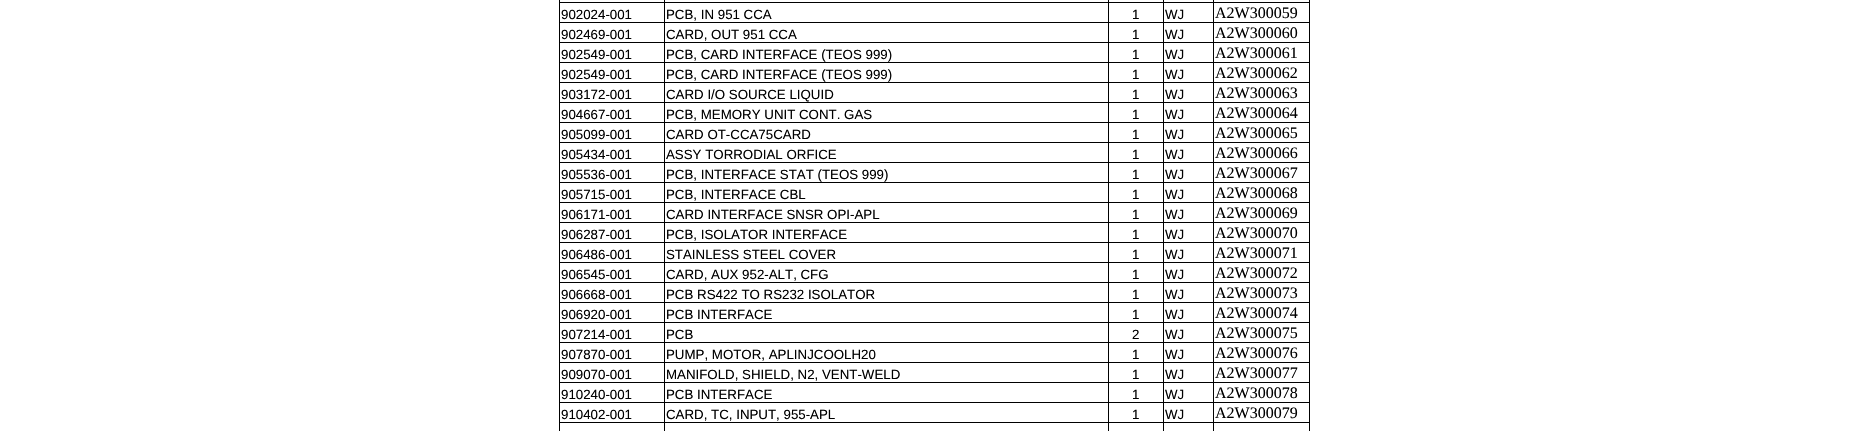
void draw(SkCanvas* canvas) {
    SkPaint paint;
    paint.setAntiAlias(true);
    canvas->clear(0xFFFFFFFF);
    paint.setColor(0xFF000000);
    canvas->drawRect(SkRect::MakeXYWH(1309, 22, 1, 409), paint);
    canvas->drawRect(SkRect::MakeXYWH(1309, 0, 1, 23), paint);
    canvas->drawRect(SkRect::MakeXYWH(1213, 422, 1, 9), paint);
    canvas->drawRect(SkRect::MakeXYWH(1213, 422, 97, 1), paint);
    canvas->drawRect(SkRect::MakeXYWH(1213, 402, 1, 21), paint);
    canvas->drawRect(SkRect::MakeXYWH(1213, 402, 97, 1), paint);
    canvas->drawRect(SkRect::MakeXYWH(1213, 382, 1, 21), paint);
    canvas->drawRect(SkRect::MakeXYWH(1213, 382, 97, 1), paint);
    canvas->drawRect(SkRect::MakeXYWH(1213, 362, 1, 21), paint);
    canvas->drawRect(SkRect::MakeXYWH(1213, 362, 97, 1), paint);
    canvas->drawRect(SkRect::MakeXYWH(1213, 342, 1, 21), paint);
    canvas->drawRect(SkRect::MakeXYWH(1213, 342, 97, 1), paint);
    canvas->drawRect(SkRect::MakeXYWH(1213, 322, 1, 21), paint);
    canvas->drawRect(SkRect::MakeXYWH(1213, 322, 97, 1), paint);
    canvas->drawRect(SkRect::MakeXYWH(1213, 302, 1, 21), paint);
    canvas->drawRect(SkRect::MakeXYWH(1213, 302, 97, 1), paint);
    canvas->drawRect(SkRect::MakeXYWH(1213, 282, 1, 21), paint);
    canvas->drawRect(SkRect::MakeXYWH(1213, 282, 97, 1), paint);
    canvas->drawRect(SkRect::MakeXYWH(1213, 262, 1, 21), paint);
    canvas->drawRect(SkRect::MakeXYWH(1213, 262, 97, 1), paint);
    canvas->drawRect(SkRect::MakeXYWH(1213, 242, 1, 21), paint);
    canvas->drawRect(SkRect::MakeXYWH(1213, 242, 97, 1), paint);
    canvas->drawRect(SkRect::MakeXYWH(1213, 222, 1, 21), paint);
    canvas->drawRect(SkRect::MakeXYWH(1213, 222, 97, 1), paint);
    canvas->drawRect(SkRect::MakeXYWH(1213, 202, 1, 21), paint);
    canvas->drawRect(SkRect::MakeXYWH(1213, 202, 97, 1), paint);
    canvas->drawRect(SkRect::MakeXYWH(1213, 182, 1, 21), paint);
    canvas->drawRect(SkRect::MakeXYWH(1213, 182, 97, 1), paint);
    canvas->drawRect(SkRect::MakeXYWH(1213, 162, 1, 21), paint);
    canvas->drawRect(SkRect::MakeXYWH(1213, 162, 97, 1), paint);
    canvas->drawRect(SkRect::MakeXYWH(1213, 142, 1, 21), paint);
    canvas->drawRect(SkRect::MakeXYWH(1213, 142, 97, 1), paint);
    canvas->drawRect(SkRect::MakeXYWH(1213, 122, 1, 21), paint);
    canvas->drawRect(SkRect::MakeXYWH(1213, 122, 97, 1), paint);
    canvas->drawRect(SkRect::MakeXYWH(1213, 102, 1, 21), paint);
    canvas->drawRect(SkRect::MakeXYWH(1213, 102, 97, 1), paint);
    canvas->drawRect(SkRect::MakeXYWH(1213, 82, 1, 21), paint);
    canvas->drawRect(SkRect::MakeXYWH(1213, 82, 97, 1), paint);
    canvas->drawRect(SkRect::MakeXYWH(1213, 62, 1, 21), paint);
    canvas->drawRect(SkRect::MakeXYWH(1213, 62, 97, 1), paint);
    canvas->drawRect(SkRect::MakeXYWH(1213, 42, 1, 21), paint);
    canvas->drawRect(SkRect::MakeXYWH(1213, 42, 97, 1), paint);
    canvas->drawRect(SkRect::MakeXYWH(1213, 22, 1, 21), paint);
    canvas->drawRect(SkRect::MakeXYWH(1213, 22, 97, 1), paint);
    canvas->drawRect(SkRect::MakeXYWH(1213, 2, 1, 21), paint);
    canvas->drawRect(SkRect::MakeXYWH(1213, 2, 97, 1), paint);
    canvas->drawRect(SkRect::MakeXYWH(1213, 0, 1, 3), paint);
    canvas->drawRect(SkRect::MakeXYWH(1163, 422, 1, 9), paint);
    canvas->drawRect(SkRect::MakeXYWH(1163, 422, 51, 1), paint);
    canvas->drawRect(SkRect::MakeXYWH(1163, 402, 1, 21), paint);
    canvas->drawRect(SkRect::MakeXYWH(1163, 402, 51, 1), paint);
    canvas->drawRect(SkRect::MakeXYWH(1163, 382, 1, 21), paint);
    canvas->drawRect(SkRect::MakeXYWH(1163, 382, 51, 1), paint);
    canvas->drawRect(SkRect::MakeXYWH(1163, 362, 1, 21), paint);
    canvas->drawRect(SkRect::MakeXYWH(1163, 362, 51, 1), paint);
    canvas->drawRect(SkRect::MakeXYWH(1163, 342, 1, 21), paint);
    canvas->drawRect(SkRect::MakeXYWH(1163, 342, 51, 1), paint);
    canvas->drawRect(SkRect::MakeXYWH(1163, 322, 1, 21), paint);
    canvas->drawRect(SkRect::MakeXYWH(1163, 322, 51, 1), paint);
    canvas->drawRect(SkRect::MakeXYWH(1163, 302, 1, 21), paint);
    canvas->drawRect(SkRect::MakeXYWH(1163, 302, 51, 1), paint);
    canvas->drawRect(SkRect::MakeXYWH(1163, 282, 1, 21), paint);
    canvas->drawRect(SkRect::MakeXYWH(1163, 282, 51, 1), paint);
    canvas->drawRect(SkRect::MakeXYWH(1163, 262, 1, 21), paint);
    canvas->drawRect(SkRect::MakeXYWH(1163, 262, 51, 1), paint);
    canvas->drawRect(SkRect::MakeXYWH(1163, 242, 1, 21), paint);
    canvas->drawRect(SkRect::MakeXYWH(1163, 242, 51, 1), paint);
    canvas->drawRect(SkRect::MakeXYWH(1163, 222, 1, 21), paint);
    canvas->drawRect(SkRect::MakeXYWH(1163, 222, 51, 1), paint);
    canvas->drawRect(SkRect::MakeXYWH(1163, 202, 1, 21), paint);
    canvas->drawRect(SkRect::MakeXYWH(1163, 202, 51, 1), paint);
    canvas->drawRect(SkRect::MakeXYWH(1163, 182, 1, 21), paint);
    canvas->drawRect(SkRect::MakeXYWH(1163, 182, 51, 1), paint);
    canvas->drawRect(SkRect::MakeXYWH(1163, 162, 1, 21), paint);
    canvas->drawRect(SkRect::MakeXYWH(1163, 162, 51, 1), paint);
    canvas->drawRect(SkRect::MakeXYWH(1163, 142, 1, 21), paint);
    canvas->drawRect(SkRect::MakeXYWH(1163, 142, 51, 1), paint);
    canvas->drawRect(SkRect::MakeXYWH(1163, 122, 1, 21), paint);
    canvas->drawRect(SkRect::MakeXYWH(1163, 122, 51, 1), paint);
    canvas->drawRect(SkRect::MakeXYWH(1163, 102, 1, 21), paint);
    canvas->drawRect(SkRect::MakeXYWH(1163, 102, 51, 1), paint);
    canvas->drawRect(SkRect::MakeXYWH(1163, 82, 1, 21), paint);
    canvas->drawRect(SkRect::MakeXYWH(1163, 82, 51, 1), paint);
    canvas->drawRect(SkRect::MakeXYWH(1163, 62, 1, 21), paint);
    canvas->drawRect(SkRect::MakeXYWH(1163, 62, 51, 1), paint);
    canvas->drawRect(SkRect::MakeXYWH(1163, 42, 1, 21), paint);
    canvas->drawRect(SkRect::MakeXYWH(1163, 42, 51, 1), paint);
    canvas->drawRect(SkRect::MakeXYWH(1163, 22, 1, 21), paint);
    canvas->drawRect(SkRect::MakeXYWH(1163, 22, 51, 1), paint);
    canvas->drawRect(SkRect::MakeXYWH(1163, 2, 1, 21), paint);
    canvas->drawRect(SkRect::MakeXYWH(1163, 2, 51, 1), paint);
    canvas->drawRect(SkRect::MakeXYWH(1163, 0, 1, 3), paint);
    canvas->drawRect(SkRect::MakeXYWH(1108, 422, 1, 9), paint);
    canvas->drawRect(SkRect::MakeXYWH(1108, 422, 56, 1), paint);
    canvas->drawRect(SkRect::MakeXYWH(1108, 402, 1, 21), paint);
    canvas->drawRect(SkRect::MakeXYWH(1108, 402, 56, 1), paint);
    canvas->drawRect(SkRect::MakeXYWH(1108, 382, 1, 21), paint);
    canvas->drawRect(SkRect::MakeXYWH(1108, 382, 56, 1), paint);
    canvas->drawRect(SkRect::MakeXYWH(1108, 362, 1, 21), paint);
    canvas->drawRect(SkRect::MakeXYWH(1108, 362, 56, 1), paint);
    canvas->drawRect(SkRect::MakeXYWH(1108, 342, 1, 21), paint);
    canvas->drawRect(SkRect::MakeXYWH(1108, 342, 56, 1), paint);
    canvas->drawRect(SkRect::MakeXYWH(1108, 322, 1, 21), paint);
    canvas->drawRect(SkRect::MakeXYWH(1108, 322, 56, 1), paint);
    canvas->drawRect(SkRect::MakeXYWH(1108, 302, 1, 21), paint);
    canvas->drawRect(SkRect::MakeXYWH(1108, 302, 56, 1), paint);
    canvas->drawRect(SkRect::MakeXYWH(1108, 282, 1, 21), paint);
    canvas->drawRect(SkRect::MakeXYWH(1108, 282, 56, 1), paint);
    canvas->drawRect(SkRect::MakeXYWH(1108, 262, 1, 21), paint);
    canvas->drawRect(SkRect::MakeXYWH(1108, 262, 56, 1), paint);
    canvas->drawRect(SkRect::MakeXYWH(1108, 242, 1, 21), paint);
    canvas->drawRect(SkRect::MakeXYWH(1108, 242, 56, 1), paint);
    canvas->drawRect(SkRect::MakeXYWH(1108, 222, 1, 21), paint);
    canvas->drawRect(SkRect::MakeXYWH(1108, 222, 56, 1), paint);
    canvas->drawRect(SkRect::MakeXYWH(1108, 202, 1, 21), paint);
    canvas->drawRect(SkRect::MakeXYWH(1108, 202, 56, 1), paint);
    canvas->drawRect(SkRect::MakeXYWH(1108, 182, 1, 21), paint);
    canvas->drawRect(SkRect::MakeXYWH(1108, 182, 56, 1), paint);
    canvas->drawRect(SkRect::MakeXYWH(1108, 162, 1, 21), paint);
    canvas->drawRect(SkRect::MakeXYWH(1108, 162, 56, 1), paint);
    canvas->drawRect(SkRect::MakeXYWH(1108, 142, 1, 21), paint);
    canvas->drawRect(SkRect::MakeXYWH(1108, 142, 56, 1), paint);
    canvas->drawRect(SkRect::MakeXYWH(1108, 122, 1, 21), paint);
    canvas->drawRect(SkRect::MakeXYWH(1108, 122, 56, 1), paint);
    canvas->drawRect(SkRect::MakeXYWH(1108, 102, 1, 21), paint);
    canvas->drawRect(SkRect::MakeXYWH(1108, 102, 56, 1), paint);
    canvas->drawRect(SkRect::MakeXYWH(1108, 82, 1, 21), paint);
    canvas->drawRect(SkRect::MakeXYWH(1108, 82, 56, 1), paint);
    canvas->drawRect(SkRect::MakeXYWH(1108, 62, 1, 21), paint);
    canvas->drawRect(SkRect::MakeXYWH(1108, 62, 56, 1), paint);
    canvas->drawRect(SkRect::MakeXYWH(1108, 42, 1, 21), paint);
    canvas->drawRect(SkRect::MakeXYWH(1108, 42, 56, 1), paint);
    canvas->drawRect(SkRect::MakeXYWH(1108, 22, 1, 21), paint);
    canvas->drawRect(SkRect::MakeXYWH(1108, 22, 56, 1), paint);
    canvas->drawRect(SkRect::MakeXYWH(1108, 2, 1, 21), paint);
    canvas->drawRect(SkRect::MakeXYWH(1108, 2, 56, 1), paint);
    canvas->drawRect(SkRect::MakeXYWH(1108, 0, 1, 3), paint);
    canvas->drawRect(SkRect::MakeXYWH(664, 422, 1, 9), paint);
    canvas->drawRect(SkRect::MakeXYWH(664, 422, 445, 1), paint);
    canvas->drawRect(SkRect::MakeXYWH(664, 402, 1, 21), paint);
    canvas->drawRect(SkRect::MakeXYWH(664, 402, 445, 1), paint);
    canvas->drawRect(SkRect::MakeXYWH(664, 382, 1, 21), paint);
    canvas->drawRect(SkRect::MakeXYWH(664, 382, 445, 1), paint);
    canvas->drawRect(SkRect::MakeXYWH(664, 362, 1, 21), paint);
    canvas->drawRect(SkRect::MakeXYWH(664, 362, 445, 1), paint);
    canvas->drawRect(SkRect::MakeXYWH(664, 342, 1, 21), paint);
    canvas->drawRect(SkRect::MakeXYWH(664, 342, 445, 1), paint);
    canvas->drawRect(SkRect::MakeXYWH(664, 322, 1, 21), paint);
    canvas->drawRect(SkRect::MakeXYWH(664, 322, 445, 1), paint);
    canvas->drawRect(SkRect::MakeXYWH(664, 302, 1, 21), paint);
    canvas->drawRect(SkRect::MakeXYWH(664, 302, 445, 1), paint);
    canvas->drawRect(SkRect::MakeXYWH(664, 282, 1, 21), paint);
    canvas->drawRect(SkRect::MakeXYWH(664, 282, 445, 1), paint);
    canvas->drawRect(SkRect::MakeXYWH(664, 262, 1, 21), paint);
    canvas->drawRect(SkRect::MakeXYWH(664, 262, 445, 1), paint);
    canvas->drawRect(SkRect::MakeXYWH(664, 242, 1, 21), paint);
    canvas->drawRect(SkRect::MakeXYWH(664, 242, 445, 1), paint);
    canvas->drawRect(SkRect::MakeXYWH(664, 222, 1, 21), paint);
    canvas->drawRect(SkRect::MakeXYWH(664, 222, 445, 1), paint);
    canvas->drawRect(SkRect::MakeXYWH(664, 202, 1, 21), paint);
    canvas->drawRect(SkRect::MakeXYWH(664, 202, 445, 1), paint);
    canvas->drawRect(SkRect::MakeXYWH(664, 182, 1, 21), paint);
    canvas->drawRect(SkRect::MakeXYWH(664, 182, 445, 1), paint);
    canvas->drawRect(SkRect::MakeXYWH(664, 162, 1, 21), paint);
    canvas->drawRect(SkRect::MakeXYWH(664, 162, 445, 1), paint);
    canvas->drawRect(SkRect::MakeXYWH(664, 142, 1, 21), paint);
    canvas->drawRect(SkRect::MakeXYWH(664, 142, 445, 1), paint);
    canvas->drawRect(SkRect::MakeXYWH(664, 122, 1, 21), paint);
    canvas->drawRect(SkRect::MakeXYWH(664, 122, 445, 1), paint);
    canvas->drawRect(SkRect::MakeXYWH(664, 102, 1, 21), paint);
    canvas->drawRect(SkRect::MakeXYWH(664, 102, 445, 1), paint);
    canvas->drawRect(SkRect::MakeXYWH(664, 82, 1, 21), paint);
    canvas->drawRect(SkRect::MakeXYWH(664, 82, 445, 1), paint);
    canvas->drawRect(SkRect::MakeXYWH(664, 62, 1, 21), paint);
    canvas->drawRect(SkRect::MakeXYWH(664, 62, 445, 1), paint);
    canvas->drawRect(SkRect::MakeXYWH(664, 42, 1, 21), paint);
    canvas->drawRect(SkRect::MakeXYWH(664, 42, 445, 1), paint);
    canvas->drawRect(SkRect::MakeXYWH(664, 22, 1, 21), paint);
    canvas->drawRect(SkRect::MakeXYWH(664, 22, 445, 1), paint);
    canvas->drawRect(SkRect::MakeXYWH(664, 2, 1, 21), paint);
    canvas->drawRect(SkRect::MakeXYWH(664, 2, 445, 1), paint);
    canvas->drawRect(SkRect::MakeXYWH(664, 0, 1, 3), paint);
    canvas->drawRect(SkRect::MakeXYWH(559, 422, 1, 9), paint);
    canvas->drawRect(SkRect::MakeXYWH(559, 422, 106, 1), paint);
    canvas->drawRect(SkRect::MakeXYWH(559, 402, 1, 21), paint);
    canvas->drawRect(SkRect::MakeXYWH(559, 402, 106, 1), paint);
    canvas->drawRect(SkRect::MakeXYWH(559, 382, 1, 21), paint);
    canvas->drawRect(SkRect::MakeXYWH(559, 382, 106, 1), paint);
    canvas->drawRect(SkRect::MakeXYWH(559, 362, 1, 21), paint);
    canvas->drawRect(SkRect::MakeXYWH(559, 362, 106, 1), paint);
    canvas->drawRect(SkRect::MakeXYWH(559, 342, 1, 21), paint);
    canvas->drawRect(SkRect::MakeXYWH(559, 342, 106, 1), paint);
    canvas->drawRect(SkRect::MakeXYWH(559, 322, 1, 21), paint);
    canvas->drawRect(SkRect::MakeXYWH(559, 322, 106, 1), paint);
    canvas->drawRect(SkRect::MakeXYWH(559, 302, 1, 21), paint);
    canvas->drawRect(SkRect::MakeXYWH(559, 302, 106, 1), paint);
    canvas->drawRect(SkRect::MakeXYWH(559, 282, 1, 21), paint);
    canvas->drawRect(SkRect::MakeXYWH(559, 282, 106, 1), paint);
    canvas->drawRect(SkRect::MakeXYWH(559, 262, 1, 21), paint);
    canvas->drawRect(SkRect::MakeXYWH(559, 262, 106, 1), paint);
    canvas->drawRect(SkRect::MakeXYWH(559, 242, 1, 21), paint);
    canvas->drawRect(SkRect::MakeXYWH(559, 242, 106, 1), paint);
    canvas->drawRect(SkRect::MakeXYWH(559, 222, 1, 21), paint);
    canvas->drawRect(SkRect::MakeXYWH(559, 222, 106, 1), paint);
    canvas->drawRect(SkRect::MakeXYWH(559, 202, 1, 21), paint);
    canvas->drawRect(SkRect::MakeXYWH(559, 202, 106, 1), paint);
    canvas->drawRect(SkRect::MakeXYWH(559, 182, 1, 21), paint);
    canvas->drawRect(SkRect::MakeXYWH(559, 182, 106, 1), paint);
    canvas->drawRect(SkRect::MakeXYWH(559, 162, 1, 21), paint);
    canvas->drawRect(SkRect::MakeXYWH(559, 162, 106, 1), paint);
    canvas->drawRect(SkRect::MakeXYWH(559, 142, 1, 21), paint);
    canvas->drawRect(SkRect::MakeXYWH(559, 142, 106, 1), paint);
    canvas->drawRect(SkRect::MakeXYWH(559, 122, 1, 21), paint);
    canvas->drawRect(SkRect::MakeXYWH(559, 122, 106, 1), paint);
    canvas->drawRect(SkRect::MakeXYWH(559, 102, 1, 21), paint);
    canvas->drawRect(SkRect::MakeXYWH(559, 102, 106, 1), paint);
    canvas->drawRect(SkRect::MakeXYWH(559, 82, 1, 21), paint);
    canvas->drawRect(SkRect::MakeXYWH(559, 82, 106, 1), paint);
    canvas->drawRect(SkRect::MakeXYWH(559, 62, 1, 21), paint);
    canvas->drawRect(SkRect::MakeXYWH(559, 62, 106, 1), paint);
    canvas->drawRect(SkRect::MakeXYWH(559, 42, 1, 21), paint);
    canvas->drawRect(SkRect::MakeXYWH(559, 42, 106, 1), paint);
    canvas->drawRect(SkRect::MakeXYWH(559, 22, 1, 21), paint);
    canvas->drawRect(SkRect::MakeXYWH(559, 22, 106, 1), paint);
    canvas->drawRect(SkRect::MakeXYWH(559, 2, 1, 21), paint);
    canvas->drawRect(SkRect::MakeXYWH(559, 2, 106, 1), paint);
    canvas->drawRect(SkRect::MakeXYWH(559, 0, 1, 3), paint);
    SkFont font1(fontMgr->matchFamilyStyle("Liberation Sans", SkFontStyle::Normal()), 13.3f);
    font1.setSubpixel(true);
    canvas->drawString("902024-001", 561, 19, font1, paint);
    canvas->drawString("PCB, IN 951 CCA", 666, 19, font1, paint);
    canvas->drawString("1", 1132, 19, font1, paint);
    canvas->drawString("WJ", 1165, 19, font1, paint);
    SkFont font2(fontMgr->matchFamilyStyle("Liberation Serif", SkFontStyle::Normal()), 16);
    font2.setSubpixel(true);
    canvas->drawString("A2W300059", 1215, 18, font2, paint);
    canvas->drawString("902469-001", 561, 39, font1, paint);
    canvas->drawString("CARD, OUT 951 CCA", 666, 39, font1, paint);
    canvas->drawString("1", 1132, 39, font1, paint);
    canvas->drawString("WJ", 1165, 39, font1, paint);
    canvas->drawString("A2W300060", 1215, 38, font2, paint);
    canvas->drawString("902549-001", 561, 59, font1, paint);
    canvas->drawString("PCB, CARD INTERFACE (TEOS 999)", 666, 59, font1, paint);
    canvas->drawString("1", 1132, 59, font1, paint);
    canvas->drawString("WJ", 1165, 59, font1, paint);
    canvas->drawString("A2W300061", 1215, 58, font2, paint);
    canvas->drawString("902549-001", 561, 79, font1, paint);
    canvas->drawString("PCB, CARD INTERFACE (TEOS 999)", 666, 79, font1, paint);
    canvas->drawString("1", 1132, 79, font1, paint);
    canvas->drawString("WJ", 1165, 79, font1, paint);
    canvas->drawString("A2W300062", 1215, 78, font2, paint);
    canvas->drawString("903172-001", 561, 99, font1, paint);
    canvas->drawString("CARD I/O SOURCE LIQUID", 666, 99, font1, paint);
    canvas->drawString("1", 1132, 99, font1, paint);
    canvas->drawString("WJ", 1165, 99, font1, paint);
    canvas->drawString("A2W300063", 1215, 98, font2, paint);
    canvas->drawString("904667-001", 561, 119, font1, paint);
    canvas->drawString("PCB, MEMORY UNIT CONT. GAS", 666, 119, font1, paint);
    canvas->drawString("1", 1132, 119, font1, paint);
    canvas->drawString("WJ", 1165, 119, font1, paint);
    canvas->drawString("A2W300064", 1215, 118, font2, paint);
    canvas->drawString("905099-001", 561, 139, font1, paint);
    canvas->drawString("CARD OT-CCA75CARD", 666, 139, font1, paint);
    canvas->drawString("1", 1132, 139, font1, paint);
    canvas->drawString("WJ", 1165, 139, font1, paint);
    canvas->drawString("A2W300065", 1215, 138, font2, paint);
    canvas->drawString("905434-001", 561, 159, font1, paint);
    canvas->drawString("ASSY TORRODIAL ORFICE", 666, 159, font1, paint);
    canvas->drawString("1", 1132, 159, font1, paint);
    canvas->drawString("WJ", 1165, 159, font1, paint);
    canvas->drawString("A2W300066", 1215, 158, font2, paint);
    canvas->drawString("905536-001", 561, 179, font1, paint);
    canvas->drawString("PCB, INTERFACE STAT (TEOS 999)", 666, 179, font1, paint);
    canvas->drawString("1", 1132, 179, font1, paint);
    canvas->drawString("WJ", 1165, 179, font1, paint);
    canvas->drawString("A2W300067", 1215, 178, font2, paint);
    canvas->drawString("905715-001", 561, 199, font1, paint);
    canvas->drawString("PCB, INTERFACE CBL", 666, 199, font1, paint);
    canvas->drawString("1", 1132, 199, font1, paint);
    canvas->drawString("WJ", 1165, 199, font1, paint);
    canvas->drawString("A2W300068", 1215, 198, font2, paint);
    canvas->drawString("906171-001", 561, 219, font1, paint);
    canvas->drawString("CARD INTERFACE SNSR OPI-APL", 666, 219, font1, paint);
    canvas->drawString("1", 1132, 219, font1, paint);
    canvas->drawString("WJ", 1165, 219, font1, paint);
    canvas->drawString("A2W300069", 1215, 218, font2, paint);
    canvas->drawString("906287-001", 561, 239, font1, paint);
    canvas->drawString("PCB, ISOLATOR INTERFACE", 666, 239, font1, paint);
    canvas->drawString("1", 1132, 239, font1, paint);
    canvas->drawString("WJ", 1165, 239, font1, paint);
    canvas->drawString("A2W300070", 1215, 238, font2, paint);
    canvas->drawString("906486-001", 561, 259, font1, paint);
    canvas->drawString("STAINLESS STEEL COVER", 666, 259, font1, paint);
    canvas->drawString("1", 1132, 259, font1, paint);
    canvas->drawString("WJ", 1165, 259, font1, paint);
    canvas->drawString("A2W300071", 1215, 258, font2, paint);
    canvas->drawString("906545-001", 561, 279, font1, paint);
    canvas->drawString("CARD, AUX 952-ALT, CFG", 666, 279, font1, paint);
    canvas->drawString("1", 1132, 279, font1, paint);
    canvas->drawString("WJ", 1165, 279, font1, paint);
    canvas->drawString("A2W300072", 1215, 278, font2, paint);
    canvas->drawString("906668-001", 561, 299, font1, paint);
    canvas->drawString("PCB RS422 TO RS232 ISOLATOR", 666, 299, font1, paint);
    canvas->drawString("1", 1132, 299, font1, paint);
    canvas->drawString("WJ", 1165, 299, font1, paint);
    canvas->drawString("A2W300073", 1215, 298, font2, paint);
    canvas->drawString("906920-001", 561, 319, font1, paint);
    canvas->drawString("PCB INTERFACE", 666, 319, font1, paint);
    canvas->drawString("1", 1132, 319, font1, paint);
    canvas->drawString("WJ", 1165, 319, font1, paint);
    canvas->drawString("A2W300074", 1215, 318, font2, paint);
    canvas->drawString("907214-001", 561, 339, font1, paint);
    canvas->drawString("PCB", 666, 339, font1, paint);
    canvas->drawString("2", 1132, 339, font1, paint);
    canvas->drawString("WJ", 1165, 339, font1, paint);
    canvas->drawString("A2W300075", 1215, 338, font2, paint);
    canvas->drawString("907870-001", 561, 359, font1, paint);
    canvas->drawString("PUMP, MOTOR, APLINJCOOLH20", 666, 359, font1, paint);
    canvas->drawString("1", 1132, 359, font1, paint);
    canvas->drawString("WJ", 1165, 359, font1, paint);
    canvas->drawString("A2W300076", 1215, 358, font2, paint);
    canvas->drawString("909070-001", 561, 379, font1, paint);
    canvas->drawString("MANIFOLD, SHIELD, N2, VENT-WELD", 666, 379, font1, paint);
    canvas->drawString("1", 1132, 379, font1, paint);
    canvas->drawString("WJ", 1165, 379, font1, paint);
    canvas->drawString("A2W300077", 1215, 378, font2, paint);
    canvas->drawString("910240-001", 561, 399, font1, paint);
    canvas->drawString("PCB INTERFACE", 666, 399, font1, paint);
    canvas->drawString("1", 1132, 399, font1, paint);
    canvas->drawString("WJ", 1165, 399, font1, paint);
    canvas->drawString("A2W300078", 1215, 398, font2, paint);
    canvas->drawString("910402-001", 561, 419, font1, paint);
    canvas->drawString("CARD, TC, INPUT, 955-APL", 666, 419, font1, paint);
    canvas->drawString("1", 1132, 419, font1, paint);
    canvas->drawString("WJ", 1165, 419, font1, paint);
    canvas->drawString("A2W300079", 1215, 418, font2, paint);
}
